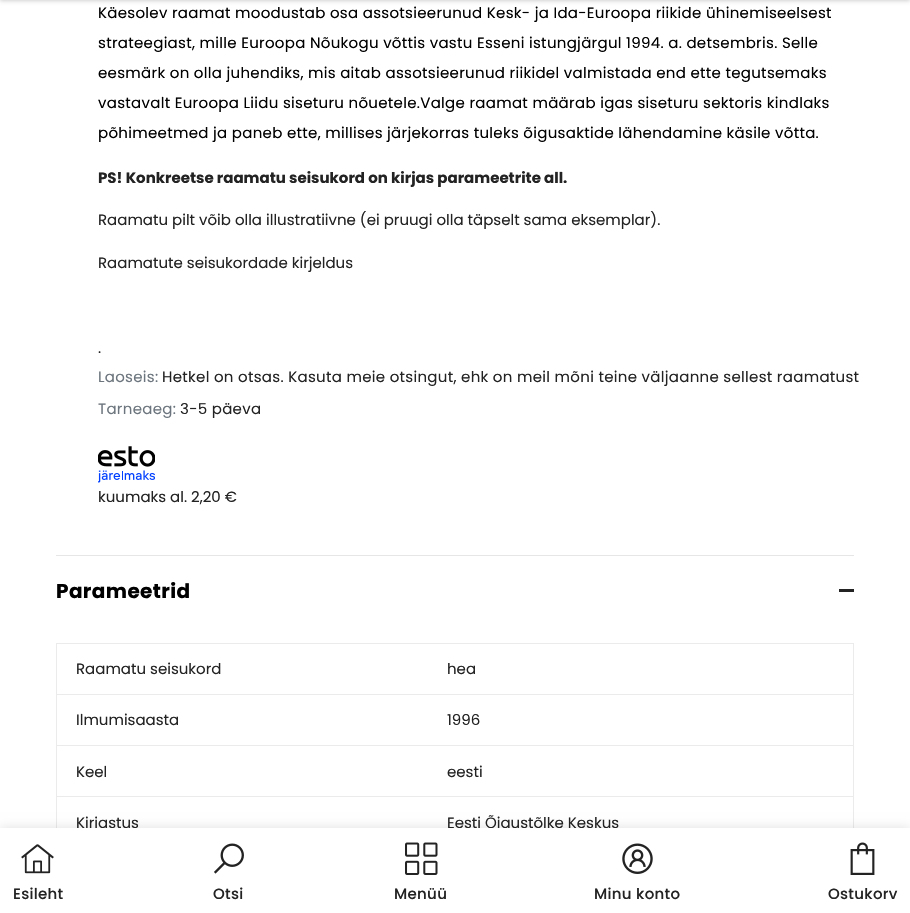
void draw(SkCanvas* canvas) {
    SkPaint paint;
    paint.setAntiAlias(true);
    auto spacedText = [&](const char* s, float x, float y, const SkFont& font, const SkPaint& ink, float letter, float word) {
        std::vector<SkGlyphID> glyphs(font.countText(s, strlen(s), SkTextEncoding::kUTF8));
        std::vector<float> xs(glyphs.size());
        font.textToGlyphs(s, strlen(s), SkTextEncoding::kUTF8, glyphs);
        font.getXPos(glyphs, xs, x);
        float extra = 0;
        for (size_t i = 0; i < glyphs.size(); i++) {
            xs[i] += extra;
            extra += letter + word * (glyphs[i] == font.unicharToGlyph(' '));
        }
        canvas->drawTextBlob(SkTextBlob::MakeFromPosHGlyphs(glyphs, xs, y, font), 0, 0, ink);
    };
    canvas->clear(0xFFFFFFFF);
    paint.setColor(0x1F000000);
    paint.setMaskFilter(SkMaskFilter::MakeBlur(kNormal_SkBlurStyle, 2));
    canvas->drawRect(SkRect::MakeXYWH(0, -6, 910, 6), paint);
    paint.setMaskFilter(nullptr);
    paint.setColor(0x1A000000);
    paint.setMaskFilter(SkMaskFilter::MakeBlur(kNormal_SkBlurStyle, 2));
    canvas->drawRect(SkRect::MakeXYWH(0, -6, 910, 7), paint);
    paint.setMaskFilter(nullptr);
    SkFont font1(fontMgr->matchFamilyStyle("Poppins", SkFontStyle::Normal()), 15);
    font1.setSubpixel(true);
    paint.setColor(0xFF000000);
    spacedText("Käesolev raamat moodustab osa assotsieerunud Kesk- ja Ida-Euroopa riikide ühinemiseelsest", 98, 18, font1, paint, 0.3f, 0);
    spacedText("strateegiast, mille Euroopa Nõukogu võttis vastu Esseni istungjärgul 1994. a. detsembris. Selle", 98, 48, font1, paint, 0.3f, 0);
    spacedText("eesmärk on olla juhendiks, mis aitab assotsieerunud riikidel valmistada end ette tegutsemaks", 98, 78, font1, paint, 0.3f, 0);
    spacedText("vastavalt Euroopa Liidu siseturu nõuetele.Valge raamat määrab igas siseturu sektoris kindlaks", 98, 108, font1, paint, 0.3f, 0);
    spacedText("põhimeetmed ja paneb ette, millises järjekorras tuleks õigusaktide lähendamine käsile võtta.", 98, 138, font1, paint, 0.3f, 0);
    SkFont font2(fontMgr->matchFamilyStyle("Poppins", SkFontStyle::Bold()), 15);
    font2.setSubpixel(true);
    paint.setColor(0xFF232323);
    canvas->drawString("PS! Konkreetse raamatu seisukord on kirjas parameetrite all.", 98, 183, font2, paint);
    canvas->drawString("Raamatu pilt võib olla illustratiivne (ei pruugi olla täpselt sama eksemplar).", 98, 225, font1, paint);
    canvas->drawString("Raamatute seisukordade kirjeldus", 98, 268, font1, paint);
    canvas->drawString(".", 98, 353, font1, paint);
    paint.setColor(0xFF6C757D);
    spacedText("Laoseis:", 98, 382, font1, paint, 0.3f, 0);
    paint.setColor(0xFF232323);
    spacedText("Hetkel on otsas. Kasuta meie otsingut, ehk on meil mõni teine väljaanne sellest raamatust", 162, 382, font1, paint, 0.3f, 0);
    paint.setColor(0xFF6C757D);
    spacedText("Tarneaeg:", 98, 414, font1, paint, 0.3f, 0);
    paint.setColor(0xFF232323);
    spacedText("3-5 päeva", 180, 414, font1, paint, 0.3f, 0);
    canvas->drawImageRect(SkImages::DeferredFromEncodedData(SkData::MakeFromFileName("img1.png")), SkRect::MakeXYWH(98, 446, 57, 37), SkSamplingOptions());
    canvas->drawString("kuumaks al. 2,20 €", 98, 502, font1, paint);
    paint.setColor(0xFFE6E6E6);
    canvas->drawRect(SkRect::MakeXYWH(56, 555, 798, 1), paint);
    SkFont font3(fontMgr->matchFamilyStyle("Poppins", SkFontStyle::Bold()), 20);
    font3.setSubpixel(true);
    paint.setColor(0xFF000000);
    spacedText("Parameetrid", 56, 598, font3, paint, 0.4f, 0);
    paint.setColor(0xFF232323);
    canvas->drawRect(SkRect::MakeXYWH(839, 589, 15, 3), paint);
    paint.setColor(0xFFEBEBEB);
    canvas->drawRect(SkRect::MakeXYWH(56, 643, 798, 1), paint);
    canvas->drawRect(SkRect::MakeXYWH(853, 643, 1, 185), paint);
    canvas->drawRect(SkRect::MakeXYWH(56, 643, 1, 185), paint);
    paint.setColor(0xFF232323);
    canvas->drawString("Raamatu seisukord", 76, 674, font1, paint);
    paint.setColor(0xFFEBEBEB);
    canvas->drawRect(SkRect::MakeXYWH(56, 694, 798, 1), paint);
    paint.setColor(0xFF232323);
    canvas->drawString("hea", 447, 674, font1, paint);
    canvas->drawString("Ilmumisaasta", 76, 725, font1, paint);
    paint.setColor(0xFFEBEBEB);
    canvas->drawRect(SkRect::MakeXYWH(56, 745, 798, 1), paint);
    paint.setColor(0xFF232323);
    canvas->drawString("1996", 447, 725, font1, paint);
    canvas->drawString("Keel", 76, 777, font1, paint);
    paint.setColor(0xFFEBEBEB);
    canvas->drawRect(SkRect::MakeXYWH(56, 796, 798, 1), paint);
    paint.setColor(0xFF232323);
    canvas->drawString("eesti", 447, 777, font1, paint);
    canvas->drawString("Kirjastus", 76, 828, font1, paint);
    canvas->drawString("Eesti Õigustõlke Keskus", 447, 828, font1, paint);
    paint.setColor(0x1F000000);
    paint.setMaskFilter(SkMaskFilter::MakeBlur(kNormal_SkBlurStyle, 5.5f));
    canvas->drawRect(SkRect::MakeXYWH(0, 828, 910, 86), paint);
    paint.setMaskFilter(nullptr);
    paint.setColor(0xFFFFFFFF);
    canvas->drawRect(SkRect::MakeXYWH(0, 828, 910, 85), paint);
    canvas->drawImageRect(SkImages::DeferredFromEncodedData(SkData::MakeFromFileName("img2.png")), SkRect::MakeXYWH(21, 844, 33, 30), SkSamplingOptions());
    SkFont font4(fontMgr->matchFamilyStyle("Poppins", SkFontStyle(500, SkFontStyle::kNormal_Width, SkFontStyle::kUpright_Slant)), 15);
    font4.setSubpixel(true);
    paint.setColor(0xFF232323);
    spacedText("Esileht", 13, 899, font4, paint, 0.3f, 0);
    canvas->drawImageRect(SkImages::DeferredFromEncodedData(SkData::MakeFromFileName("img3.png")), SkRect::MakeXYWH(214, 843, 30, 31), SkSamplingOptions());
    spacedText("Otsi", 213, 899, font4, paint, 0.3f, 0);
    canvas->drawImageRect(SkImages::DeferredFromEncodedData(SkData::MakeFromFileName("img4.png")), SkRect::MakeXYWH(405, 842, 33, 33), SkSamplingOptions());
    spacedText("Menüü", 394, 899, font4, paint, 0.3f, 0);
    canvas->drawImageRect(SkImages::DeferredFromEncodedData(SkData::MakeFromFileName("img5.png")), SkRect::MakeXYWH(622, 843, 31, 31), SkSamplingOptions());
    spacedText("Minu konto", 594, 899, font4, paint, 0.3f, 0);
    canvas->drawImageRect(SkImages::DeferredFromEncodedData(SkData::MakeFromFileName("img6.png")), SkRect::MakeXYWH(850, 842, 25, 33), SkSamplingOptions());
    spacedText("Ostukorv", 828, 899, font4, paint, 0.3f, 0);
}
